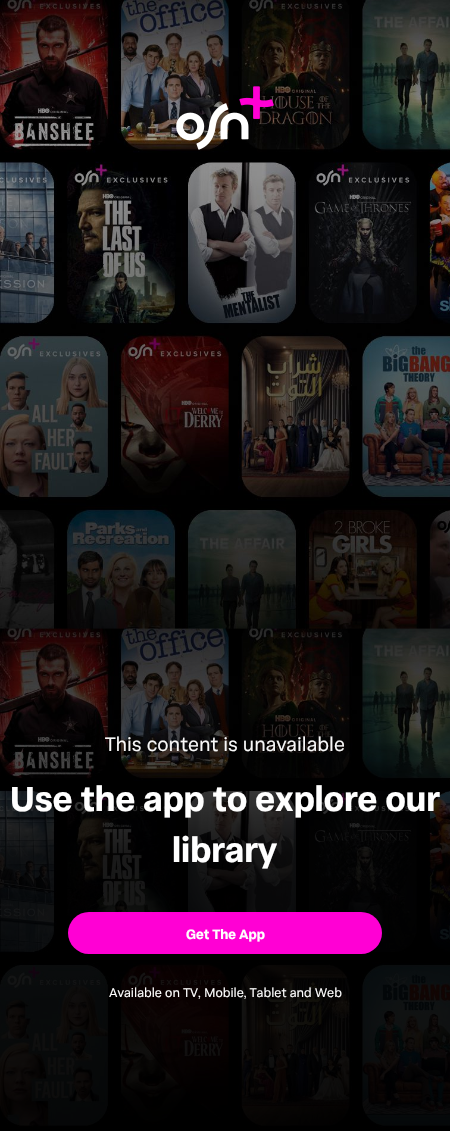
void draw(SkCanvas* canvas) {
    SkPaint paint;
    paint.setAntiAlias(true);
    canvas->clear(0xFF000000);
    canvas->drawImageRect(SkImages::DeferredFromEncodedData(SkData::MakeFromFileName("img1.png")), SkRect::MakeXYWH(0, 0, 450, 1128), SkSamplingOptions());
    canvas->drawImageRect(SkImages::DeferredFromEncodedData(SkData::MakeFromFileName("img2.png")), SkRect::MakeXYWH(176, 86, 98, 64), SkSamplingOptions());
    SkFont font1(fontMgr->matchFamilyStyle("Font", SkFontStyle::Normal()), 20.4f);
    font1.setSubpixel(true);
    paint.setColor(0xFFF8F8F8);
    canvas->drawString("This content is unavailable", 105, 751, font1, paint);
    SkFont font2(fontMgr->matchFamilyStyle("Font", SkFontStyle::Bold()), 36.6f);
    font2.setSubpixel(true);
    paint.setColor(0xFFFFFFFF);
    canvas->drawString("Use the app to explore our", 10, 811, font2, paint);
    canvas->drawString("library", 172, 862, font2, paint);
    paint.setColor(0xFFFF00D4);
    canvas->drawRoundRect(SkRect::MakeXYWH(68, 912, 314, 42), 21, 21, paint);
    SkFont font3(fontMgr->matchFamilyStyle("Font", SkFontStyle::Bold()), 14.25f);
    font3.setSubpixel(true);
    paint.setColor(0xFFFFFFFF);
    canvas->drawString("Get The App", 186, 939, font3, paint);
    SkFont font4(fontMgr->matchFamilyStyle("Font", SkFontStyle::Normal()), 13.25f);
    font4.setSubpixel(true);
    canvas->drawString("Available on TV, Mobile, Tablet and Web", 109, 997, font4, paint);
}
